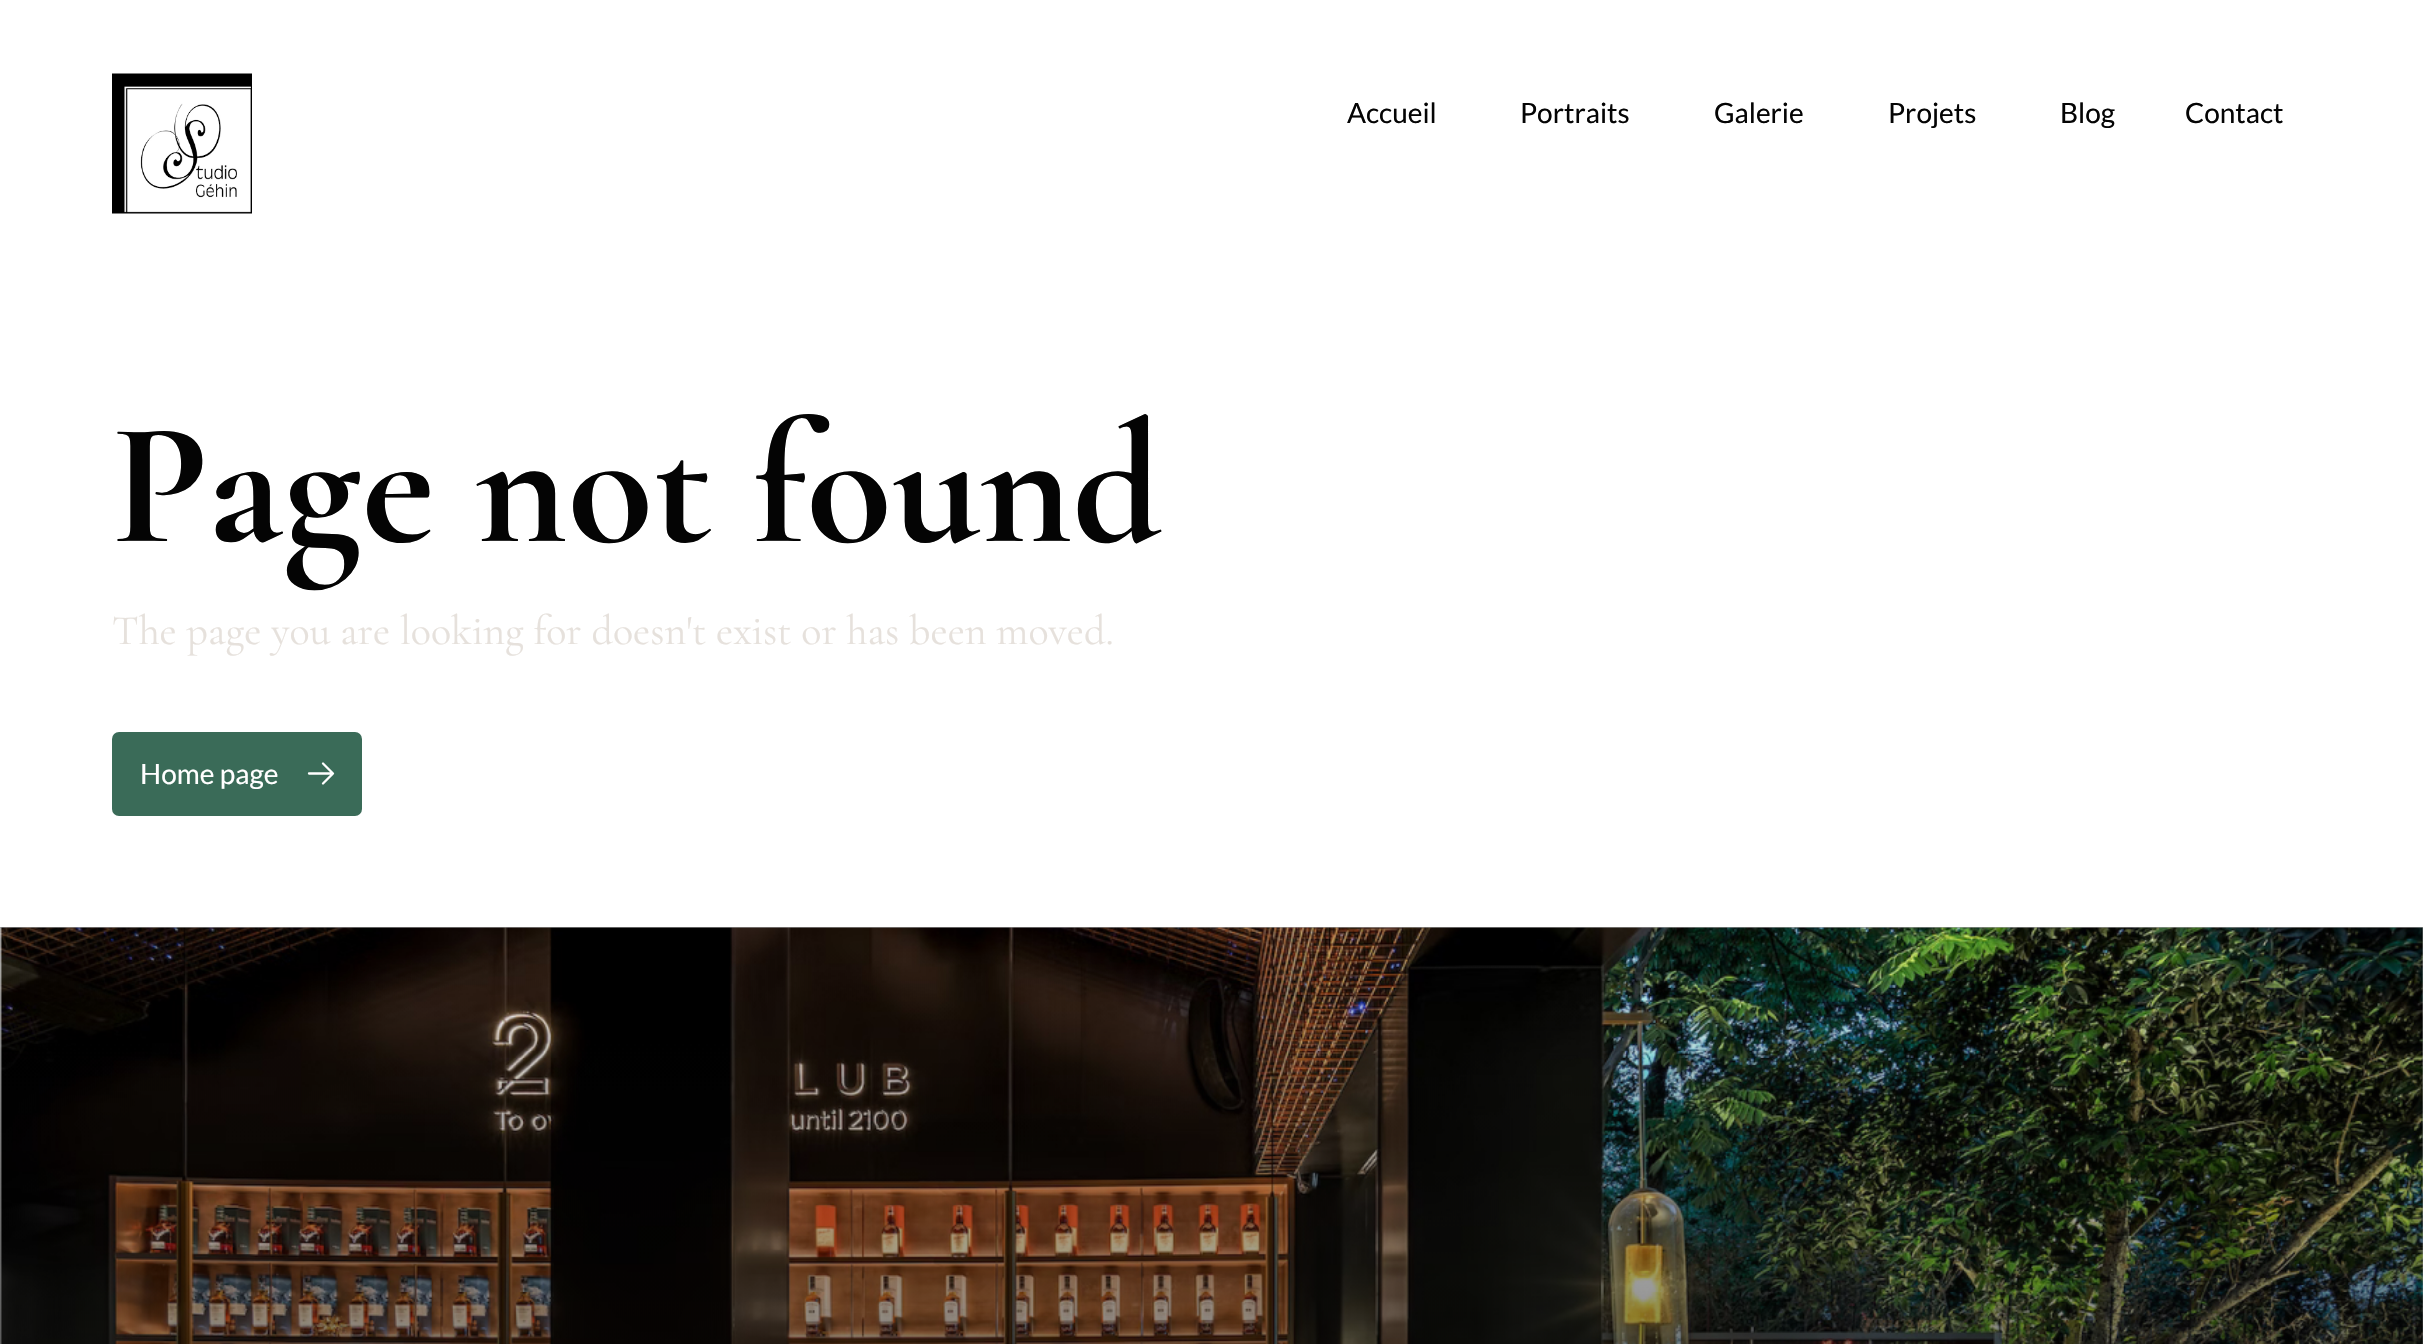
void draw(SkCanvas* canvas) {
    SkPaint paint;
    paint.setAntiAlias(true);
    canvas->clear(0xFFFFFFFF);
    canvas->drawImageRect(SkImages::DeferredFromEncodedData(SkData::MakeFromFileName("img1.png")), SkRect::MakeXYWH(112, 73, 140, 141), SkSamplingOptions());
    SkFont font1(fontMgr->matchFamilyStyle("Lato", SkFontStyle::Normal()), 28);
    font1.setSubpixel(true);
    paint.setColor(0xFF040404);
    canvas->drawString("Accueil", 1347, 123, font1, paint);
    canvas->drawString("Portraits", 1520, 123, font1, paint);
    canvas->drawString("Galerie", 1714, 123, font1, paint);
    canvas->drawString("Projets", 1888, 123, font1, paint);
    canvas->drawString("Blog", 2060, 123, font1, paint);
    canvas->drawString("Contact", 2185, 123, font1, paint);
    SkFont font2(fontMgr->matchFamilyStyle("Cormorant Garamond", SkFontStyle::Bold()), 175);
    font2.setSubpixel(true);
    canvas->drawString("Page not found", 112, 541, font2, paint);
    SkFont font3(fontMgr->matchFamilyStyle("Cormorant Garamond", SkFontStyle::Normal()), 42);
    font3.setSubpixel(true);
    paint.setColor(0xFFE6E1DC);
    canvas->drawString("The page you are looking for doesn't exist or has been moved.", 112, 644, font3, paint);
    paint.setColor(0xFF3A6B58);
    canvas->drawRoundRect(SkRect::MakeXYWH(112, 732, 250, 84), 7, 7, paint);
    paint.setStyle(SkPaint::kStroke_Style);
    paint.setStrokeWidth(2.3f);
    paint.setStrokeCap(SkPaint::kRound_Cap);
    paint.setStrokeJoin(SkPaint::kRound_Join);
    paint.setColor(0xFFFFFFFF);
    canvas->drawPath(SkPathBuilder().moveTo(309, 773.5f).lineTo(331.5f, 773.5f).moveTo(323, 763.5f).lineTo(333, 773.5f).lineTo(323, 783.5f).detach(), paint);
    paint.setStyle(SkPaint::kFill_Style);
    canvas->drawString("Home page", 140, 784, font1, paint);
    canvas->drawImageRect(SkImages::DeferredFromEncodedData(SkData::MakeFromFileName("img2.png")), SkRect::MakeXYWH(0, 927, 2423, 417), SkSamplingOptions());
}
